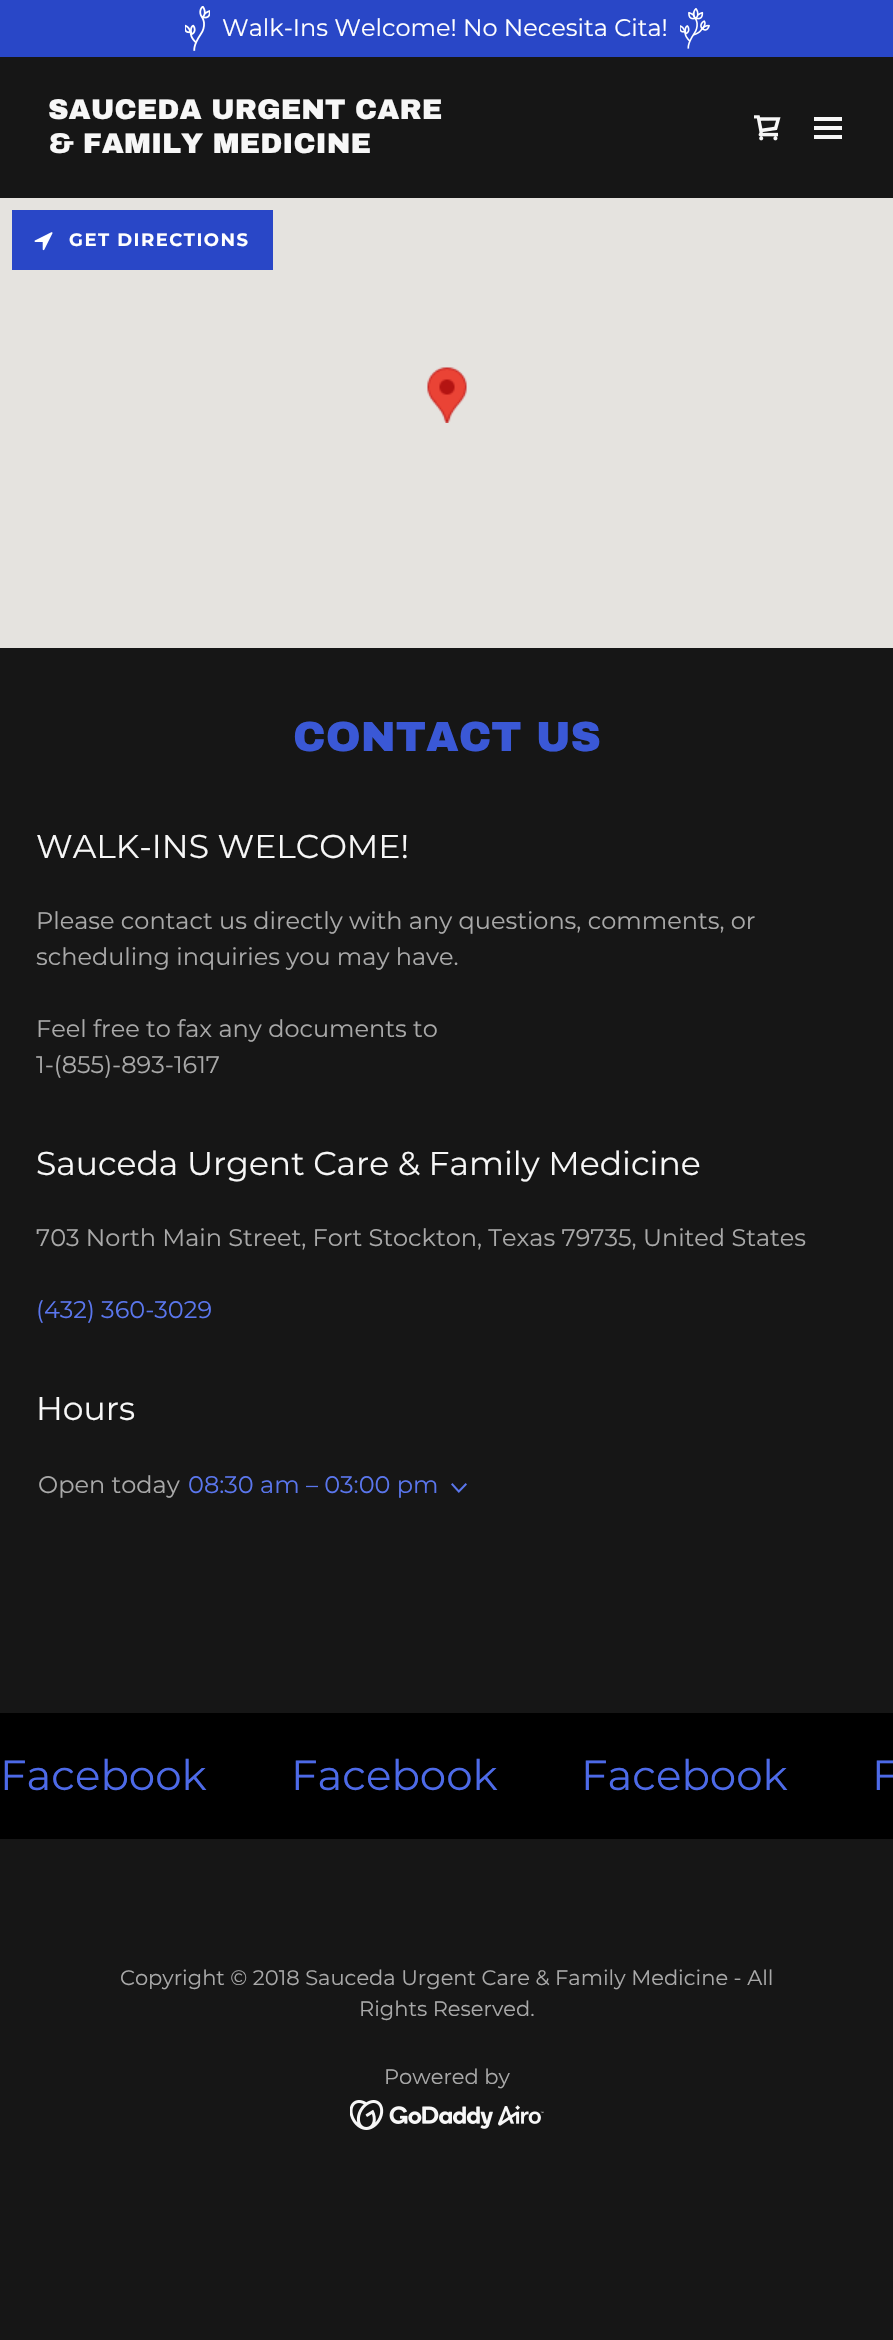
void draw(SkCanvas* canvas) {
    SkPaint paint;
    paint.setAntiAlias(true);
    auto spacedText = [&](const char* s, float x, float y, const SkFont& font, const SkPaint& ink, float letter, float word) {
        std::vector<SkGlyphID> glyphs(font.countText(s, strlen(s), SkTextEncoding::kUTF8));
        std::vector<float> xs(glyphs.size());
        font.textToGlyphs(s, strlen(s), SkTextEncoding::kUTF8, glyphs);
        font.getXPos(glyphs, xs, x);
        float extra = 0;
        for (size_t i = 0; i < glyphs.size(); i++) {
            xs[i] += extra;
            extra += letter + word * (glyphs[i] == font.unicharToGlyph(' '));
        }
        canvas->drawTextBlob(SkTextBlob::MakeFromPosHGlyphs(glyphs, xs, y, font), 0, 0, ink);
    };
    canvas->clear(0xFF161616);
    paint.setColor(0xFF2947C7);
    canvas->drawRect(SkRect::MakeXYWH(0, 0, 893, 57), paint);
    canvas->drawImageRect(SkImages::DeferredFromEncodedData(SkData::MakeFromFileName("img1.png")), SkRect::MakeXYWH(185, 6, 25, 45), SkSamplingOptions());
    SkFont font1(fontMgr->matchFamilyStyle("Montserrat", SkFontStyle::Normal()), 24);
    font1.setSubpixel(true);
    paint.setColor(0xFFFFFFFF);
    canvas->drawString("Walk-Ins Welcome! No Necesita Cita!", 222, 36, font1, paint);
    canvas->drawImageRect(SkImages::DeferredFromEncodedData(SkData::MakeFromFileName("img2.png")), SkRect::MakeXYWH(680, 8, 30, 41), SkSamplingOptions());
    SkFont font2(fontMgr->matchFamilyStyle("Archivo Black", SkFontStyle(900, SkFontStyle::kNormal_Width, SkFontStyle::kUpright_Slant)), 28.5f);
    font2.setSubpixel(true);
    paint.setColor(0xFFF7F7F7);
    canvas->drawString("SAUCEDA URGENT CARE", 48, 119, font2, paint);
    canvas->drawString("& FAMILY MEDICINE", 48, 153, font2, paint);
    canvas->drawImageRect(SkImages::DeferredFromEncodedData(SkData::MakeFromFileName("img3.png")), SkRect::MakeXYWH(754, 115, 27, 26), SkSamplingOptions());
    canvas->drawRect(SkRect::MakeXYWH(814, 117, 28, 4), paint);
    canvas->drawRect(SkRect::MakeXYWH(814, 126, 28, 4), paint);
    canvas->drawRect(SkRect::MakeXYWH(814, 135, 28, 4), paint);
    paint.setColor(0xFFE5E3DF);
    canvas->drawRect(SkRect::MakeXYWH(0, 198, 893, 450), paint);
    canvas->drawImageRect(SkImages::DeferredFromEncodedData(SkData::MakeFromFileName("img4.png")), SkRect::MakeXYWH(427, 367, 40, 56), SkSamplingOptions());
    paint.setColor(0xFF2947C7);
    canvas->drawRect(SkRect::MakeXYWH(12, 210, 261, 60), paint);
    canvas->drawImageRect(SkImages::DeferredFromEncodedData(SkData::MakeFromFileName("img5.png")), SkRect::MakeXYWH(34, 232, 19, 19), SkSamplingOptions());
    SkFont font3(fontMgr->matchFamilyStyle("Montserrat", SkFontStyle::Bold()), 18);
    font3.setSubpixel(true);
    paint.setColor(0xFFFFFFFF);
    spacedText("GET DIRECTIONS", 69, 246, font3, paint, 1.5f, 0);
    SkFont font4(fontMgr->matchFamilyStyle("Archivo Black", SkFontStyle(900, SkFontStyle::kNormal_Width, SkFontStyle::kUpright_Slant)), 42);
    font4.setSubpixel(true);
    paint.setColor(0xFF3A58D6);
    canvas->drawString("CONTACT US", 293, 751, font4, paint);
    SkFont font5(fontMgr->matchFamilyStyle("Montserrat", SkFontStyle::Normal()), 33);
    font5.setSubpixel(true);
    paint.setColor(0xFFF7F7F7);
    canvas->drawString("WALK-INS WELCOME!", 36, 858, font5, paint);
    paint.setColor(0xFFA9A9A9);
    canvas->drawString("Please contact us directly with any questions, comments, or", 36, 929, font1, paint);
    canvas->drawString("scheduling inquiries you may have.", 36, 965, font1, paint);
    canvas->drawString("Feel free to fax any documents to", 36, 1037, font1, paint);
    canvas->drawString("1-(855)-893-1617", 36, 1073, font1, paint);
    paint.setColor(0xFFF7F7F7);
    canvas->drawString("Sauceda Urgent Care & Family Medicine", 36, 1175, font5, paint);
    paint.setColor(0xFFA9A9A9);
    canvas->drawString("703 North Main Street, Fort Stockton, Texas 79735, United States", 36, 1246, font1, paint);
    paint.setColor(0xFF5A76ED);
    canvas->drawString("(432) 360-3029", 36, 1318, font1, paint);
    paint.setColor(0xFFF7F7F7);
    canvas->drawString("Hours", 36, 1420, font5, paint);
    paint.setColor(0xFFA9A9A9);
    canvas->drawString("Open today", 38, 1493, font1, paint);
    paint.setColor(0xFF5A76ED);
    canvas->drawString("08:30 am – 03:00 pm", 188, 1493, font1, paint);
    canvas->drawImageRect(SkImages::DeferredFromEncodedData(SkData::MakeFromFileName("img6.png")), SkRect::MakeXYWH(451, 1483, 16, 10), SkSamplingOptions());
    paint.setColor(0xFF000000);
    canvas->drawRect(SkRect::MakeXYWH(0, 1713, 893, 126), paint);
    SkFont font6(fontMgr->matchFamilyStyle("Montserrat", SkFontStyle::Normal()), 42);
    font6.setSubpixel(true);
    paint.setColor(0xFF4D6AE8);
    canvas->drawString("Facebook", 0, 1790, font6, paint);
    canvas->drawString("Facebook", 291, 1790, font6, paint);
    canvas->drawString("Facebook", 581, 1790, font6, paint);
    canvas->drawString("F", 872, 1790, font6, paint);
    SkFont font7(fontMgr->matchFamilyStyle("Montserrat", SkFontStyle::Normal()), 21);
    font7.setSubpixel(true);
    paint.setColor(0xFFA9A9A9);
    canvas->drawString("Copyright © 2018 Sauceda Urgent Care & Family Medicine - All", 120, 1985, font7, paint);
    canvas->drawString("Rights Reserved.", 359, 2016, font7, paint);
    canvas->drawString("Powered by", 384, 2084, font7, paint);
    canvas->drawImageRect(SkImages::DeferredFromEncodedData(SkData::MakeFromFileName("img7.png")), SkRect::MakeXYWH(350, 2100, 194, 30), SkSamplingOptions());
}
